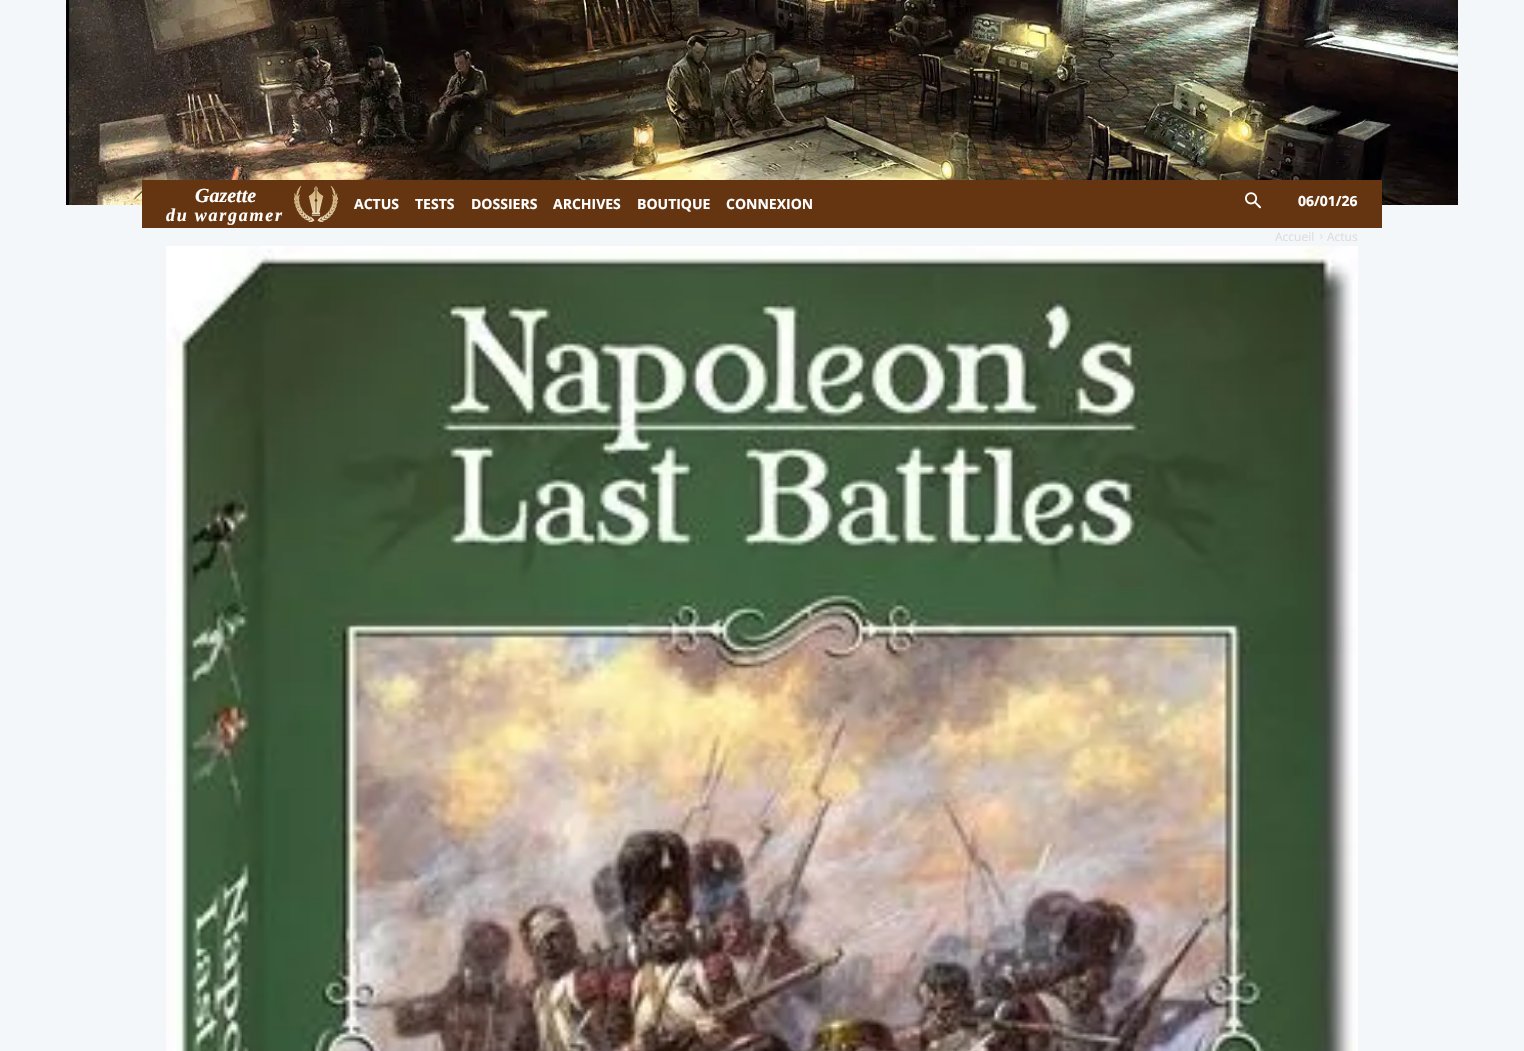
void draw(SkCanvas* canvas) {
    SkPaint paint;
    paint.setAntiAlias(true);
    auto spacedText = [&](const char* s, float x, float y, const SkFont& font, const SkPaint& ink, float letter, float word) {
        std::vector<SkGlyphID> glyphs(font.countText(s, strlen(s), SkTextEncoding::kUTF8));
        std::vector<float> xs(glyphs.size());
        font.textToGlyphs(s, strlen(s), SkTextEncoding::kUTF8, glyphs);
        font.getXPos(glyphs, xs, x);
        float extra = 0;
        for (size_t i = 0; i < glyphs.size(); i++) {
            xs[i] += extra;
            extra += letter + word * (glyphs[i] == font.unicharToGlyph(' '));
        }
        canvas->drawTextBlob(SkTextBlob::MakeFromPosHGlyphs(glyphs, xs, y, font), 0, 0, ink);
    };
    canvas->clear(0xFFF4F7F9);
    canvas->drawImageRect(SkImages::DeferredFromEncodedData(SkData::MakeFromFileName("img1.png")), SkRect::MakeXYWH(66, 0, 1392, 205), SkSamplingOptions());
    paint.setColor(0xFF653410);
    canvas->drawRect(SkRect::MakeXYWH(142, 180, 1240, 48), paint);
    SkFont font1(fontMgr->matchFamilyStyle("Liberation Serif", SkFontStyle::BoldItalic()), 20);
    font1.setSubpixel(true);
    paint.setColor(0xFFFFFFFF);
    canvas->drawString("Gazette", 195, 202, font1, paint);
    SkFont font2(fontMgr->matchFamilyStyle("Liberation Serif", SkFontStyle::BoldItalic()), 18);
    font2.setSubpixel(true);
    spacedText("du wargamer", 166, 221, font2, paint, 1.75f, 0);
    canvas->drawImageRect(SkImages::DeferredFromEncodedData(SkData::MakeFromFileName("img2.png")), SkRect::MakeXYWH(294, 186, 44, 36), SkSamplingOptions());
    SkFont font3(fontMgr->matchFamilyStyle("Open Sans", SkFontStyle::Bold()), 14);
    font3.setSubpixel(true);
    canvas->drawString("ACTUS", 354, 209, font3, paint);
    canvas->drawString("TESTS", 415, 209, font3, paint);
    canvas->drawString("DOSSIERS", 471, 209, font3, paint);
    canvas->drawString("ARCHIVES", 553, 209, font3, paint);
    canvas->drawString("BOUTIQUE", 637, 209, font3, paint);
    canvas->drawString("CONNEXION", 726, 209, font3, paint);
    canvas->drawImageRect(SkImages::DeferredFromEncodedData(SkData::MakeFromFileName("img3.png")), SkRect::MakeXYWH(1245, 192, 16, 17), SkSamplingOptions());
    canvas->drawString("06/01/26", 1298, 206, font3, paint);
    SkFont font4(fontMgr->matchFamilyStyle("Open Sans", SkFontStyle::Normal()), 12);
    font4.setSubpixel(true);
    paint.setColor(0xFFDDDDDD);
    canvas->drawString("Accueil", 1275, 241, font4, paint);
    canvas->drawImageRect(SkImages::DeferredFromEncodedData(SkData::MakeFromFileName("img4.png")), SkRect::MakeXYWH(1320, 234, 3, 5), SkSamplingOptions());
    canvas->drawString("Actus", 1327, 241, font4, paint);
    canvas->drawImageRect(SkImages::DeferredFromEncodedData(SkData::MakeFromFileName("img5.png")), SkRect::MakeXYWH(166, 246, 1192, 805), SkSamplingOptions());
}
